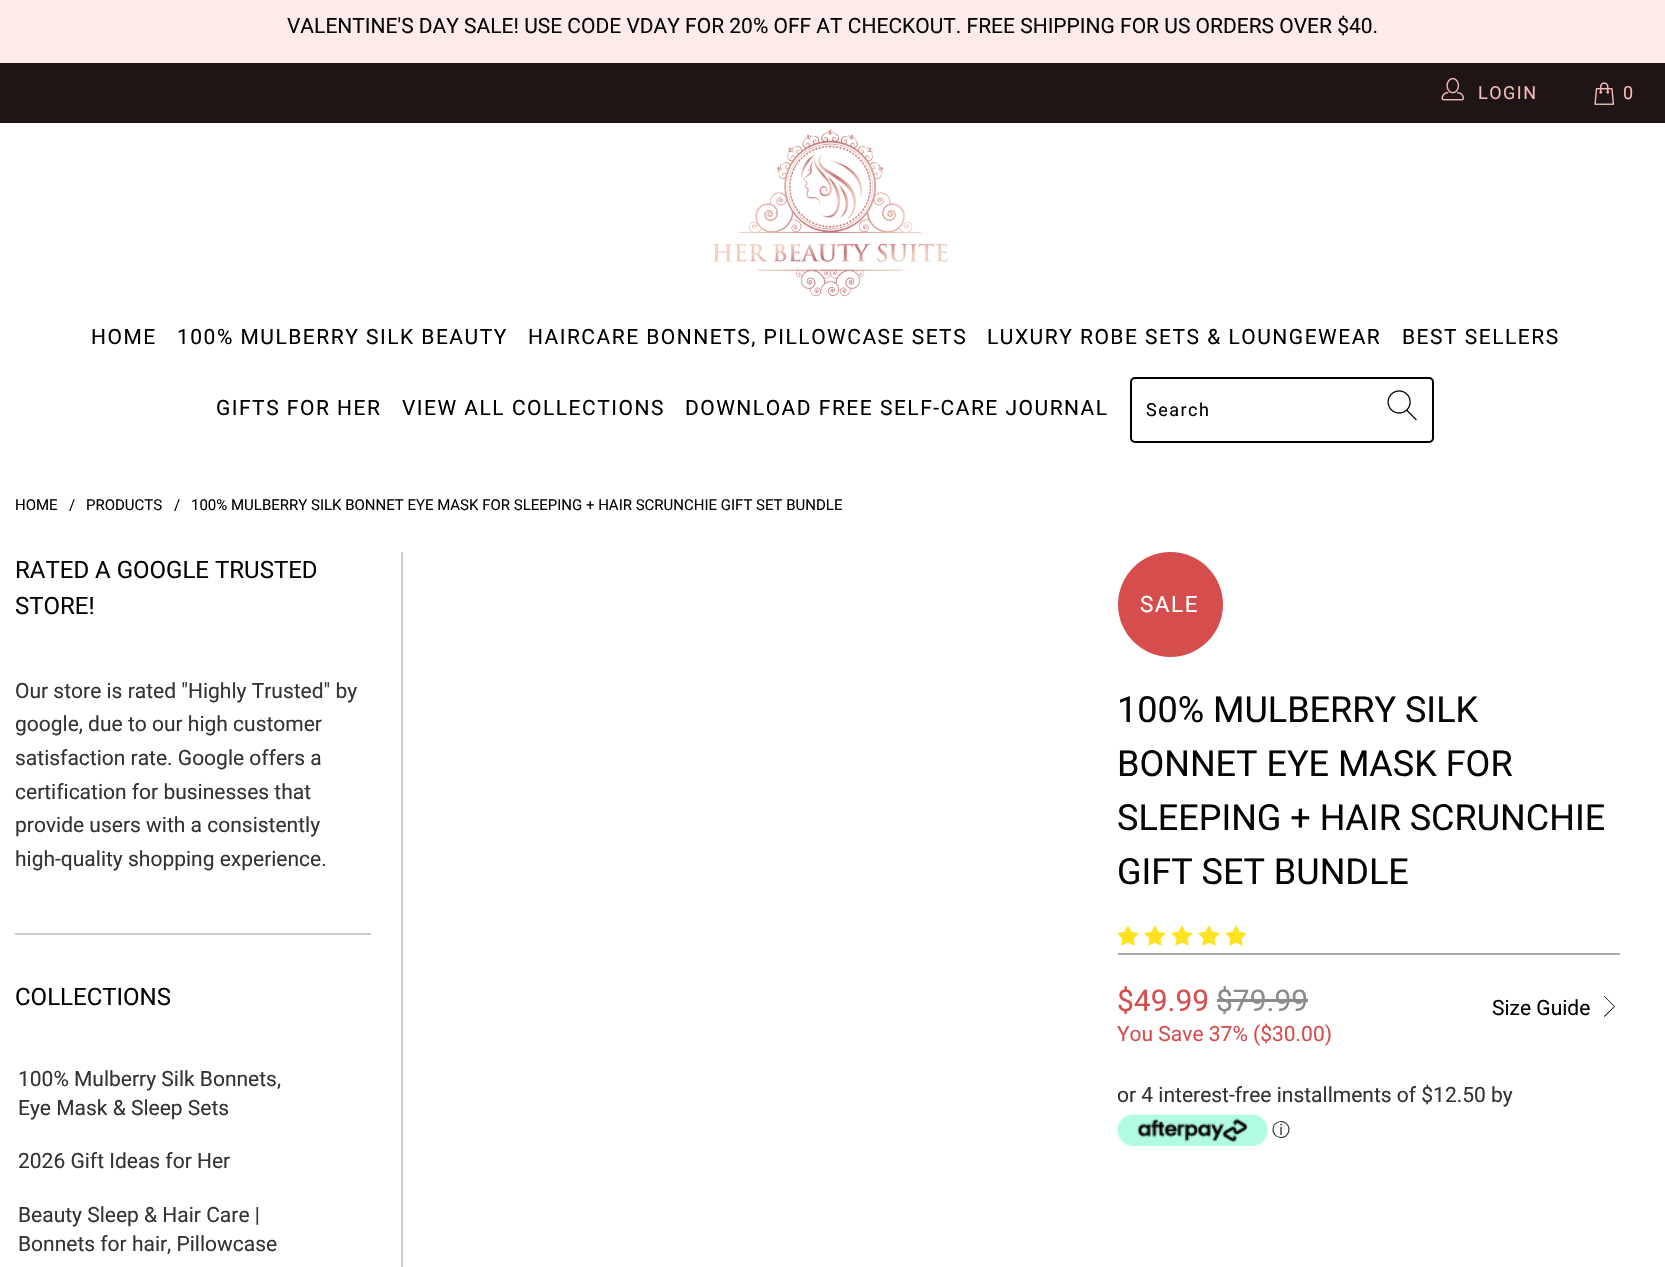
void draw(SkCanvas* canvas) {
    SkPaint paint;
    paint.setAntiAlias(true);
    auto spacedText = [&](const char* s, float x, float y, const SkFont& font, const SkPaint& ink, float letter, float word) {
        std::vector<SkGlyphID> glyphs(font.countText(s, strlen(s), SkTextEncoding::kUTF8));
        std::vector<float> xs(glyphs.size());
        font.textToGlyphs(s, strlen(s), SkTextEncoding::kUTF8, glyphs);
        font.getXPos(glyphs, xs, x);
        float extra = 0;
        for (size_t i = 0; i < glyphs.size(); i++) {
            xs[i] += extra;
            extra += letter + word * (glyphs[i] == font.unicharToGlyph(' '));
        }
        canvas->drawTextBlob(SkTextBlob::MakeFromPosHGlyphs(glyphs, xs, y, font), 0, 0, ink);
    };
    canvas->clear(0xFFFFFFFF);
    paint.setColor(0xFFFDEBEA);
    canvas->drawRect(SkRect::MakeXYWH(0, 0, 1665, 63), paint);
    SkFont font1(fontMgr->matchFamilyStyle("Roboto", SkFontStyle::Normal()), 21);
    font1.setSubpixel(true);
    paint.setColor(0xFF040606);
    canvas->drawString("VALENTINE'S DAY SALE! USE CODE VDAY FOR 20% OFF AT CHECKOUT. FREE SHIPPING FOR US ORDERS OVER $40.", 287, 33, font1, paint);
    paint.setColor(0xFF201515);
    canvas->drawRect(SkRect::MakeXYWH(0, 63, 1665, 60), paint);
    canvas->drawImageRect(SkImages::DeferredFromEncodedData(SkData::MakeFromFileName("img1.png")), SkRect::MakeXYWH(1441, 77, 23, 24), SkSamplingOptions());
    SkFont font2(fontMgr->matchFamilyStyle("Roboto", SkFontStyle::Normal()), 18);
    font2.setSubpixel(true);
    paint.setColor(0xFFF4BAB7);
    spacedText("LOGIN", 1478, 99, font2, paint, 1.5f, 0);
    canvas->drawImageRect(SkImages::DeferredFromEncodedData(SkData::MakeFromFileName("img2.png")), SkRect::MakeXYWH(1594, 82, 21, 23), SkSamplingOptions());
    spacedText("0", 1623, 99, font2, paint, 1.5f, 0);
    canvas->drawImageRect(SkImages::DeferredFromEncodedData(SkData::MakeFromFileName("img3.png")), SkRect::MakeXYWH(712, 129, 236, 168), SkSamplingOptions());
    paint.setColor(0xFF000000);
    spacedText("HOME", 91, 344, font1, paint, 1.5f, 0);
    spacedText("100% MULBERRY SILK BEAUTY", 177, 344, font1, paint, 1.5f, 0);
    spacedText("HAIRCARE BONNETS, PILLOWCASE SETS", 528, 344, font1, paint, 1.5f, 0);
    spacedText("LUXURY ROBE SETS & LOUNGEWEAR", 987, 344, font1, paint, 1.5f, 0);
    spacedText("BEST SELLERS", 1402, 344, font1, paint, 1.5f, 0);
    spacedText("GIFTS FOR HER", 216, 415, font1, paint, 1.5f, 0);
    spacedText("VIEW ALL COLLECTIONS", 402, 415, font1, paint, 1.5f, 0);
    spacedText("DOWNLOAD FREE SELF-CARE JOURNAL", 685, 415, font1, paint, 1.5f, 0);
    paint.setStyle(SkPaint::kStroke_Style);
    paint.setStrokeWidth(2);
    canvas->drawRoundRect(SkRect::MakeXYWH(1131, 378, 302, 64), 4, 4, paint);
    paint.setStyle(SkPaint::kFill_Style);
    spacedText("Search", 1146, 416, font2, paint, 1.5f, 0);
    canvas->drawImageRect(SkImages::DeferredFromEncodedData(SkData::MakeFromFileName("img4.png")), SkRect::MakeXYWH(1387, 390, 30, 31), SkSamplingOptions());
    SkFont font3(fontMgr->matchFamilyStyle("Roboto", SkFontStyle::Normal()), 15);
    font3.setSubpixel(true);
    paint.setColor(0xFF040606);
    canvas->drawString("HOME", 15, 510, font3, paint);
    canvas->drawString("/", 69, 510, font3, paint);
    canvas->drawString("PRODUCTS", 86, 510, font3, paint);
    canvas->drawString("/", 174, 510, font3, paint);
    canvas->drawString("100% MULBERRY SILK BONNET EYE MASK FOR SLEEPING + HAIR SCRUNCHIE GIFT SET BUNDLE", 191, 510, font3, paint);
    paint.setColor(0xFFCCCCCC);
    canvas->drawRect(SkRect::MakeXYWH(401, 552, 2, 715), paint);
    canvas->drawRect(SkRect::MakeXYWH(15, 933, 356, 2), paint);
    SkFont font4(fontMgr->matchFamilyStyle("Roboto", SkFontStyle::Normal()), 24);
    font4.setSubpixel(true);
    paint.setColor(0xFF040606);
    canvas->drawString("RATED A GOOGLE TRUSTED", 15, 578, font4, paint);
    canvas->drawString("STORE!", 15, 614, font4, paint);
    paint.setColor(0xFF333333);
    canvas->drawString("Our store is rated \"Highly Trusted\" by", 15, 698, font1, paint);
    canvas->drawString("google, due to our high customer", 15, 731, font1, paint);
    canvas->drawString("satisfaction rate. Google offers a", 15, 765, font1, paint);
    canvas->drawString("certification for businesses that", 15, 799, font1, paint);
    canvas->drawString("provide users with a consistently", 15, 832, font1, paint);
    canvas->drawString("high-quality shopping experience.", 15, 866, font1, paint);
    paint.setColor(0xFF040606);
    canvas->drawString("COLLECTIONS", 15, 1005, font4, paint);
    paint.setColor(0xFF333333);
    canvas->drawString("100% Mulberry Silk Bonnets,", 18, 1086, font1, paint);
    canvas->drawString("Eye Mask & Sleep Sets", 18, 1115, font1, paint);
    canvas->drawString("2026 Gift Ideas for Her", 18, 1168, font1, paint);
    canvas->drawString("Beauty Sleep & Hair Care |", 18, 1222, font1, paint);
    canvas->drawString("Bonnets for hair, Pillowcase", 18, 1251, font1, paint);
    paint.setColor(0xFFD54D4D);
    canvas->drawCircle(1170.5f, 604.5f, 52.5f, paint);
    SkFont font5(fontMgr->matchFamilyStyle("Roboto", SkFontStyle::Normal()), 22.5f);
    font5.setSubpixel(true);
    paint.setColor(0xFFFFFFFF);
    spacedText("SALE", 1140, 612, font5, paint, 1.5f, 0);
    SkFont font6(fontMgr->matchFamilyStyle("Roboto", SkFontStyle::Normal()), 36);
    font6.setSubpixel(true);
    paint.setColor(0xFF040606);
    canvas->drawString("100% MULBERRY SILK", 1117, 722, font6, paint);
    canvas->drawString("BONNET EYE MASK FOR", 1117, 776, font6, paint);
    canvas->drawString("SLEEPING + HAIR SCRUNCHIE", 1117, 830, font6, paint);
    canvas->drawString("GIFT SET BUNDLE", 1117, 884, font6, paint);
    canvas->drawImageRect(SkImages::DeferredFromEncodedData(SkData::MakeFromFileName("img5.png")), SkRect::MakeXYWH(1117, 925, 22, 21), SkSamplingOptions());
    canvas->drawImageRect(SkImages::DeferredFromEncodedData(SkData::MakeFromFileName("img5.png")), SkRect::MakeXYWH(1144, 925, 22, 21), SkSamplingOptions());
    canvas->drawImageRect(SkImages::DeferredFromEncodedData(SkData::MakeFromFileName("img5.png")), SkRect::MakeXYWH(1171, 925, 22, 21), SkSamplingOptions());
    canvas->drawImageRect(SkImages::DeferredFromEncodedData(SkData::MakeFromFileName("img5.png")), SkRect::MakeXYWH(1198, 925, 22, 21), SkSamplingOptions());
    canvas->drawImageRect(SkImages::DeferredFromEncodedData(SkData::MakeFromFileName("img5.png")), SkRect::MakeXYWH(1225, 925, 22, 21), SkSamplingOptions());
    paint.setColor(0xFFAAAAAA);
    canvas->drawRect(SkRect::MakeXYWH(1118, 953, 502, 2), paint);
    SkFont font7(fontMgr->matchFamilyStyle("Roboto", SkFontStyle::Normal()), 30);
    font7.setSubpixel(true);
    paint.setColor(0xFFD54D4D);
    canvas->drawString("$49.99", 1117, 1011, font7, paint);
    paint.setColor(0xFF8C8B8B);
    canvas->drawString("$79.99", 1216, 1011, font7, paint);
    canvas->drawRect(SkRect::MakeXYWH(1217, 999, 91, 3), paint);
    paint.setColor(0xFFD54D4D);
    canvas->drawString("You Save 37% ($30.00)", 1117, 1041, font1, paint);
    paint.setColor(0xFF040606);
    canvas->drawString("Size Guide", 1492, 1015, font1, paint);
    canvas->drawPath(SkPathBuilder().moveTo(1604.5f, 1017).lineTo(1604, 1016).lineTo(1614, 1006.5f).lineTo(1604, 996.5f).lineTo(1604.5f, 996).lineTo(1615, 1006.5f).close().detach(), paint);
    paint.setColor(0xFF333333);
    canvas->drawString("or 4 interest-free installments of $12.50 by", 1117, 1102, font1, paint);
    canvas->drawImageRect(SkImages::DeferredFromEncodedData(SkData::MakeFromFileName("img6.png")), SkRect::MakeXYWH(1117, 1114, 151, 32), SkSamplingOptions());
    SkFont font8(fontMgr->matchFamilyStyle("WenQuanYi Zen Hei", SkFontStyle(500, SkFontStyle::kNormal_Width, SkFontStyle::kUpright_Slant)), 18);
    font8.setSubpixel(true);
    canvas->drawString("ⓘ", 1272, 1136, font8, paint);
}
